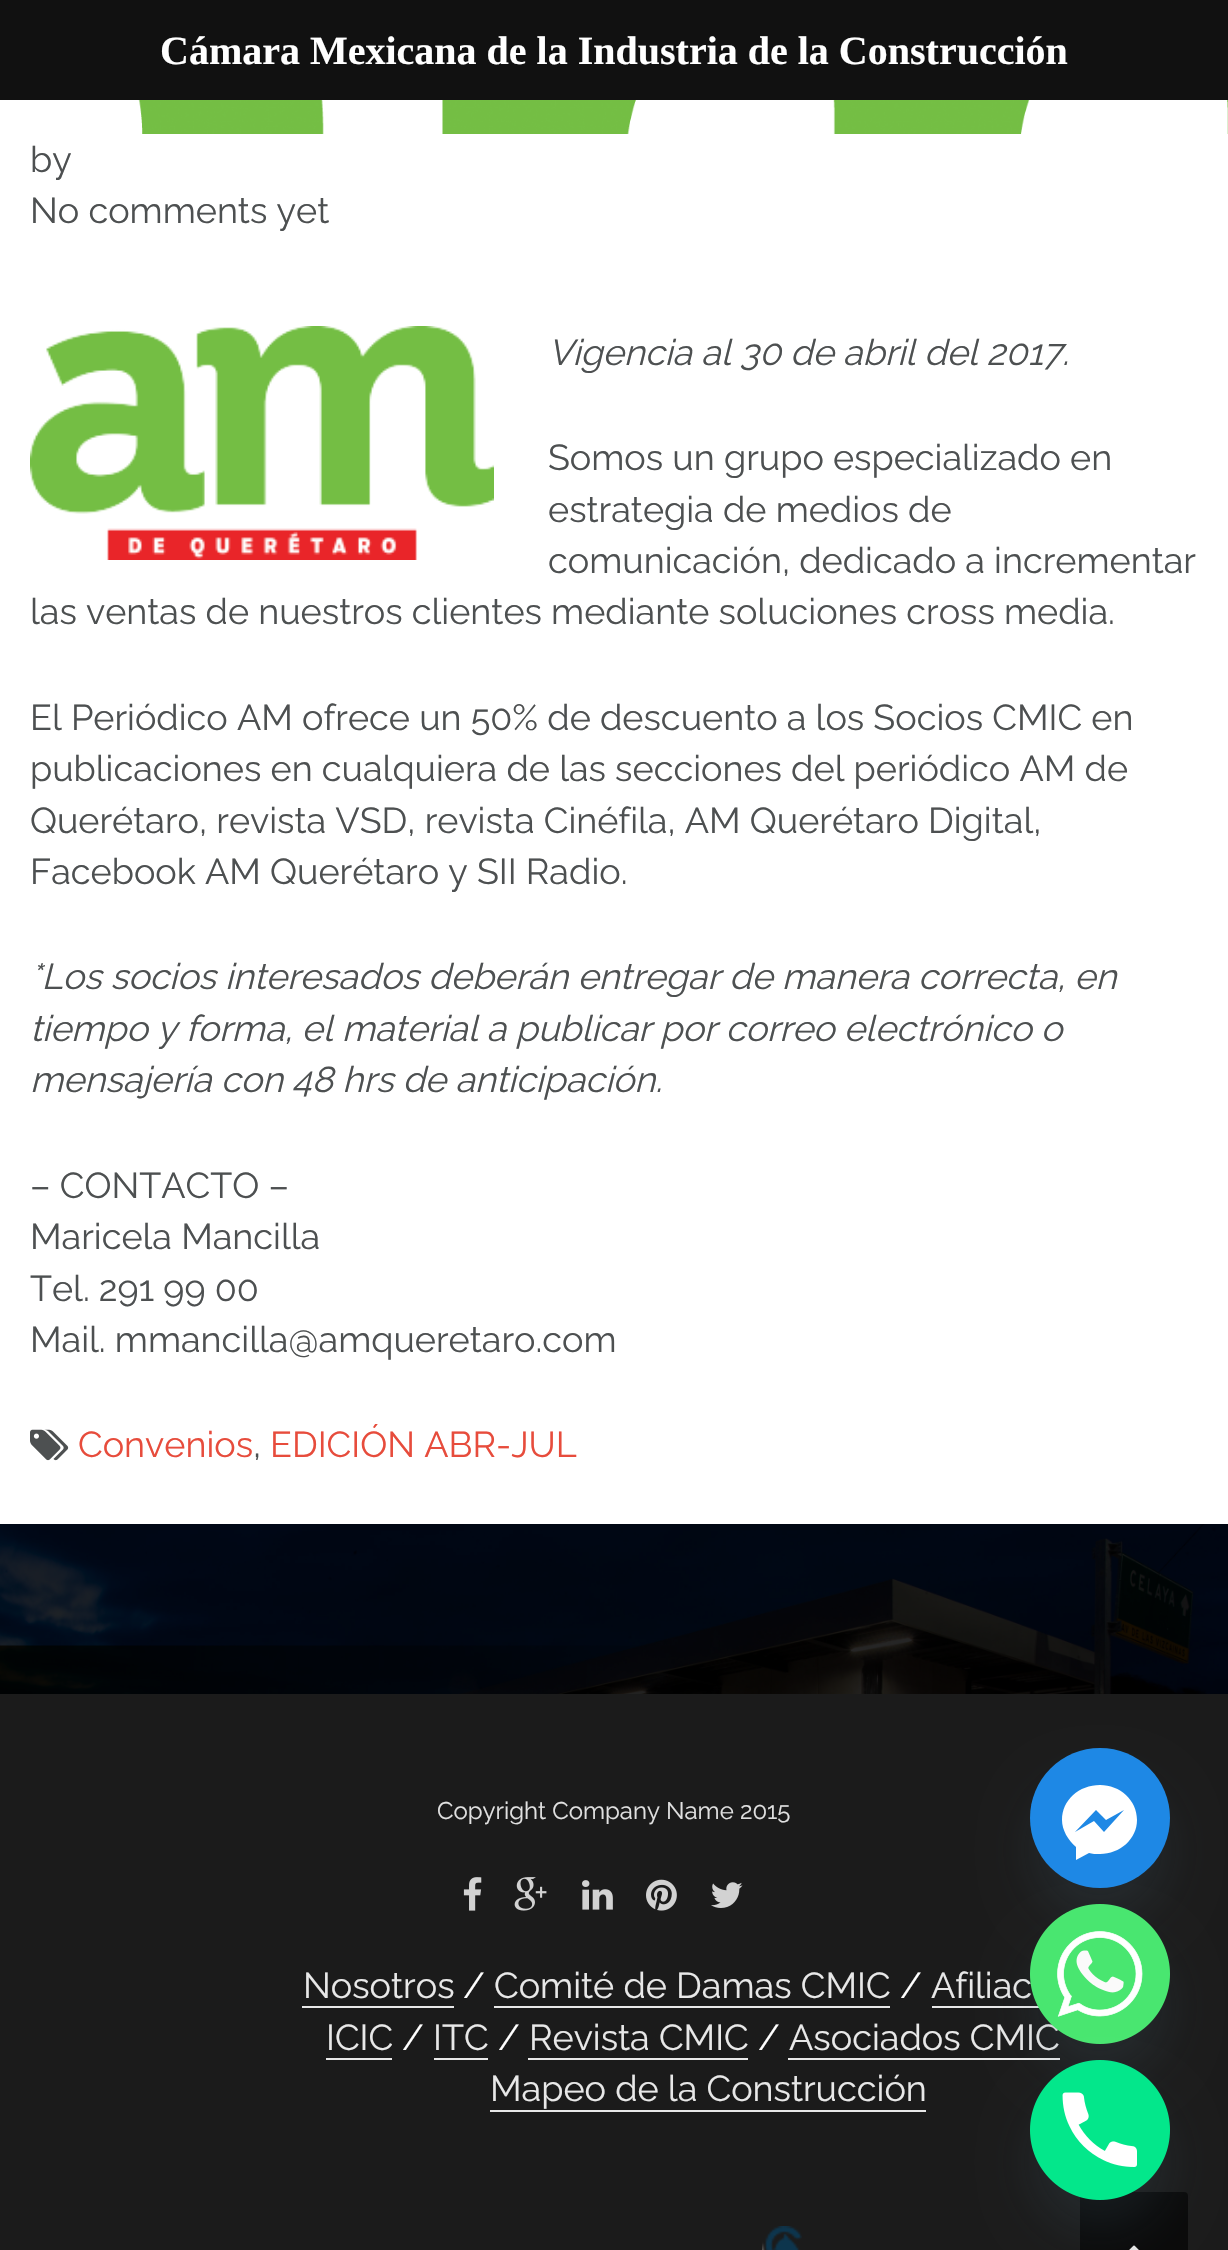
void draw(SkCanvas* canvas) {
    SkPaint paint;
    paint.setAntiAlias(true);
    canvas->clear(0xFFFFFFFF);
    paint.setColor(0xFF111111);
    canvas->drawRect(SkRect::MakeXYWH(0, 0, 1228, 100), paint);
    SkFont font1(fontMgr->matchFamilyStyle("Liberation Serif", SkFontStyle::Bold()), 40);
    font1.setSubpixel(true);
    paint.setColor(0xFFFFFFFF);
    canvas->drawString("Cámara Mexicana de la Industria de la Construcción", 160, 64, font1, paint);
    canvas->drawImageRect(SkImages::DeferredFromEncodedData(SkData::MakeFromFileName("img1.png")), SkRect::MakeXYWH(138, 100, 1090, 34), SkSamplingOptions());
    SkFont font2(fontMgr->matchFamilyStyle("Raleway", SkFontStyle::Normal()), 36);
    font2.setSubpixel(true);
    paint.setColor(0xFF4D5051);
    canvas->drawString("by", 30, 172, font2, paint);
    canvas->drawString("No comments yet", 30, 223, font2, paint);
    canvas->drawImageRect(SkImages::DeferredFromEncodedData(SkData::MakeFromFileName("img2.png")), SkRect::MakeXYWH(30, 326, 464, 234), SkSamplingOptions());
    SkFont font3(fontMgr->matchFamilyStyle("Raleway", SkFontStyle::Italic()), 36);
    font3.setSubpixel(true);
    canvas->drawString("Vigencia al 30 de abril del 2017.", 548, 365, font3, paint);
    canvas->drawString("Somos un grupo especializado en", 548, 470, font2, paint);
    canvas->drawString("estrategia de medios de", 548, 522, font2, paint);
    canvas->drawString("comunicación, dedicado a incrementar", 548, 573, font2, paint);
    canvas->drawString("las ventas de nuestros clientes mediante soluciones cross media.", 30, 624, font2, paint);
    canvas->drawString("El Periódico AM ofrece un 50% de descuento a los Socios CMIC en", 30, 730, font2, paint);
    canvas->drawString("publicaciones en cualquiera de las secciones del periódico AM de", 30, 781, font2, paint);
    canvas->drawString("Querétaro, revista VSD, revista Cinéfila, AM Querétaro Digital,", 30, 833, font2, paint);
    canvas->drawString("Facebook AM Querétaro y SII Radio.", 30, 884, font2, paint);
    canvas->drawString("*Los socios interesados deberán entregar de manera correcta, en", 30, 989, font3, paint);
    canvas->drawString("tiempo y forma, el material a publicar por correo electrónico o", 30, 1041, font3, paint);
    canvas->drawString("mensajería con 48 hrs de anticipación.", 30, 1092, font3, paint);
    canvas->drawString("– CONTACTO –", 30, 1198, font2, paint);
    canvas->drawString("Maricela Mancilla", 30, 1249, font2, paint);
    canvas->drawString("Tel. 291 99 00", 30, 1301, font2, paint);
    canvas->drawString("Mail. mmancilla@amqueretaro.com", 30, 1352, font2, paint);
    canvas->drawImageRect(SkImages::DeferredFromEncodedData(SkData::MakeFromFileName("img3.png")), SkRect::MakeXYWH(30, 1429, 39, 32), SkSamplingOptions());
    paint.setColor(0xFFE74C3C);
    canvas->drawString("Convenios", 78, 1457, font2, paint);
    paint.setColor(0xFF4D5051);
    canvas->drawString(",", 253, 1457, font2, paint);
    paint.setColor(0xFFE74C3C);
    canvas->drawString("EDICIÓN ABR-JUL", 270, 1457, font2, paint);
    paint.setColor(0xFF1B1B1B);
    canvas->drawRect(SkRect::MakeXYWH(0, 1694, 1228, 556), paint);
    SkFont font4(fontMgr->matchFamilyStyle("Raleway", SkFontStyle::Normal()), 24);
    font4.setSubpixel(true);
    paint.setColor(0xFFE1E1E1);
    canvas->drawString("Copyright Company Name 2015", 437, 1819, font4, paint);
    canvas->drawImageRect(SkImages::DeferredFromEncodedData(SkData::MakeFromFileName("img4.png")), SkRect::MakeXYWH(463, 1877, 19, 34), SkSamplingOptions());
    canvas->drawImageRect(SkImages::DeferredFromEncodedData(SkData::MakeFromFileName("img5.png")), SkRect::MakeXYWH(514, 1877, 33, 34), SkSamplingOptions());
    canvas->drawImageRect(SkImages::DeferredFromEncodedData(SkData::MakeFromFileName("img6.png")), SkRect::MakeXYWH(582, 1880, 31, 30), SkSamplingOptions());
    canvas->drawImageRect(SkImages::DeferredFromEncodedData(SkData::MakeFromFileName("img7.png")), SkRect::MakeXYWH(646, 1879, 31, 32), SkSamplingOptions());
    canvas->drawImageRect(SkImages::DeferredFromEncodedData(SkData::MakeFromFileName("img8.png")), SkRect::MakeXYWH(711, 1882, 32, 26), SkSamplingOptions());
    paint.setColor(0xFFE8E8E8);
    canvas->drawString("Nosotros", 303, 1998, font2, paint);
    canvas->drawRect(SkRect::MakeXYWH(302, 2006, 152, 2), paint);
    paint.setColor(0xFFFFFFFF);
    canvas->drawString("/", 463, 1998, font2, paint);
    paint.setColor(0xFFE8E8E8);
    canvas->drawString("Comité de Damas CMIC", 494, 1998, font2, paint);
    canvas->drawRect(SkRect::MakeXYWH(494, 2006, 396, 2), paint);
    paint.setColor(0xFFFFFFFF);
    canvas->drawString("/", 900, 1998, font2, paint);
    paint.setColor(0xFFE8E8E8);
    canvas->drawString("Afiliac", 931, 1998, font2, paint);
    canvas->drawRect(SkRect::MakeXYWH(932, 2006, 107, 2), paint);
    canvas->drawString("ICIC", 326, 2050, font2, paint);
    canvas->drawRect(SkRect::MakeXYWH(326, 2058, 66, 2), paint);
    paint.setColor(0xFFFFFFFF);
    canvas->drawString("/", 402, 2050, font2, paint);
    paint.setColor(0xFFE8E8E8);
    canvas->drawString("ITC", 433, 2050, font2, paint);
    canvas->drawRect(SkRect::MakeXYWH(434, 2058, 54, 2), paint);
    paint.setColor(0xFFFFFFFF);
    canvas->drawString("/", 498, 2050, font2, paint);
    paint.setColor(0xFFE8E8E8);
    canvas->drawString("Revista CMIC", 529, 2050, font2, paint);
    canvas->drawRect(SkRect::MakeXYWH(528, 2058, 220, 2), paint);
    paint.setColor(0xFFFFFFFF);
    canvas->drawString("/", 758, 2050, font2, paint);
    paint.setColor(0xFFE8E8E8);
    canvas->drawString("Asociados CMIC", 789, 2050, font2, paint);
    canvas->drawRect(SkRect::MakeXYWH(788, 2058, 272, 2), paint);
    canvas->drawString("Mapeo de la Construcción", 490, 2101, font2, paint);
    canvas->drawRect(SkRect::MakeXYWH(490, 2110, 436, 2), paint);
    canvas->drawImageRect(SkImages::DeferredFromEncodedData(SkData::MakeFromFileName("img9.png")), SkRect::MakeXYWH(762, 2226, 40, 24), SkSamplingOptions());
    paint.setColor(0xFF0A0A0A);
    canvas->drawRoundRect(SkRect::MakeXYWH(1080, 2192, 108, 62), 4, 4, paint);
    canvas->drawImageRect(SkImages::DeferredFromEncodedData(SkData::MakeFromFileName("img10.png")), SkRect::MakeXYWH(1129, 2245, 10, 5), SkSamplingOptions());
    canvas->drawImageRect(SkImages::DeferredFromEncodedData(SkData::MakeFromFileName("img11.png")), SkRect::MakeXYWH(0, 1524, 1228, 170), SkSamplingOptions());
    paint.setColor(0x2949687E);
    paint.setMaskFilter(SkMaskFilter::MakeBlur(kNormal_SkBlurStyle, 24));
    canvas->drawRoundRect(SkRect::MakeXYWH(1030, 1780, 140, 140), 70, 70, paint);
    paint.setMaskFilter(nullptr);
    paint.setColor(0xFF1E88E5);
    canvas->drawCircle(1100, 1818, 70, paint);
    paint.setColor(0xFFFFFFFF);
    canvas->drawPath(SkPathBuilder(SkPathFillType::kEvenOdd).moveTo(1062, 1820).cubicTo(1062, 1800, 1079, 1785, 1100, 1785).cubicTo(1120, 1785, 1137, 1800, 1137, 1820).cubicTo(1137, 1839, 1120, 1854, 1100, 1854).cubicTo(1096, 1854, 1092, 1854, 1089, 1853).lineTo(1076, 1860).lineTo(1076, 1847).cubicTo(1068, 1840, 1062, 1830, 1062, 1820).close().moveTo(1094, 1821).lineTo(1104, 1832).lineTo(1124, 1810).lineTo(1106, 1820).lineTo(1096, 1810).lineTo(1075, 1832).close().detach(), paint);
    paint.setColor(0x2949687E);
    paint.setMaskFilter(SkMaskFilter::MakeBlur(kNormal_SkBlurStyle, 24));
    canvas->drawRoundRect(SkRect::MakeXYWH(1030, 1936, 140, 140), 70, 70, paint);
    paint.setMaskFilter(nullptr);
    canvas->drawImageRect(SkImages::DeferredFromEncodedData(SkData::MakeFromFileName("img12.png")), SkRect::MakeXYWH(1030, 1904, 140, 140), SkSamplingOptions());
    paint.setMaskFilter(SkMaskFilter::MakeBlur(kNormal_SkBlurStyle, 24));
    canvas->drawRoundRect(SkRect::MakeXYWH(1030, 2092, 140, 140), 70, 70, paint);
    paint.setMaskFilter(nullptr);
    canvas->drawImageRect(SkImages::DeferredFromEncodedData(SkData::MakeFromFileName("img13.png")), SkRect::MakeXYWH(1030, 2060, 140, 140), SkSamplingOptions());
}
